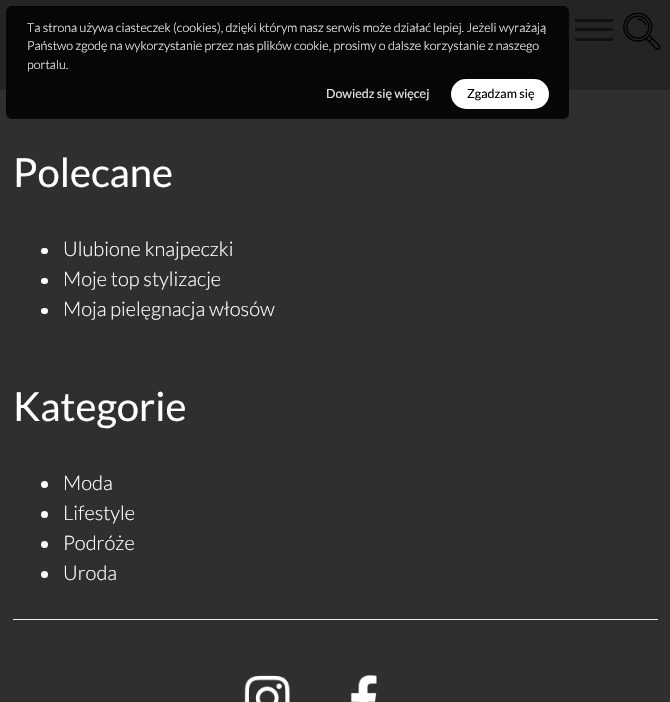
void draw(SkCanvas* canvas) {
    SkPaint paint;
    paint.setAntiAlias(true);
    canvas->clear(0xFF2F2F2F);
    paint.setColor(0xFF242424);
    canvas->drawRect(SkRect::MakeXYWH(0, 0, 670, 90), paint);
    paint.setColor(0xD9000000);
    canvas->drawRoundRect(SkRect::MakeXYWH(6, 6, 563, 113), 6, 6, paint);
    paint.setColor(0xCC000000);
    canvas->drawRect(SkRect::MakeXYWH(10, 6, 556, 1), paint);
    SkFont font1(fontMgr->matchFamilyStyle("Lato", SkFontStyle(300, SkFontStyle::kNormal_Width, SkFontStyle::kUpright_Slant)), 12.5f);
    font1.setSubpixel(true);
    paint.setColor(0xFFFFFFFF);
    canvas->drawString("Ta strona używa ciasteczek (cookies), dzięki którym nasz serwis może działać lepiej. Jeżeli wyrażają", 27, 32, font1, paint);
    canvas->drawString("Państwo zgodę na wykorzystanie przez nas plików cookie, prosimy o dalsze korzystanie z naszego", 27, 50, font1, paint);
    canvas->drawString("portalu.", 27, 69, font1, paint);
    SkFont font2(fontMgr->matchFamilyStyle("Lato", SkFontStyle::Normal()), 12.5f);
    font2.setSubpixel(true);
    paint.setColor(0xFFE6E6E6);
    canvas->drawString("Dowiedz się więcej", 326, 98, font2, paint);
    paint.setColor(0xFFFFFFFF);
    canvas->drawRoundRect(SkRect::MakeXYWH(451, 79, 98, 30), 15, 15, paint);
    paint.setColor(0xFF000000);
    canvas->drawString("Zgadzam się", 467, 98, font2, paint);
    canvas->drawImageRect(SkImages::DeferredFromEncodedData(SkData::MakeFromFileName("img1.png")), SkRect::MakeXYWH(623, 13, 38, 37), SkSamplingOptions());
    paint.setColor(0xFF111111);
    canvas->drawRect(SkRect::MakeXYWH(575, 19, 38, 3), paint);
    canvas->drawRect(SkRect::MakeXYWH(575, 28, 38, 3), paint);
    canvas->drawRect(SkRect::MakeXYWH(575, 38, 38, 3), paint);
    SkFont font3(fontMgr->matchFamilyStyle("Lato", SkFontStyle::Normal()), 40);
    font3.setSubpixel(true);
    paint.setColor(0xFFFFFFFF);
    canvas->drawString("Polecane", 13, 187, font3, paint);
    canvas->drawRoundRect(SkRect::MakeXYWH(41, 248, 7, 6), 3, 3, paint);
    SkFont font4(fontMgr->matchFamilyStyle("Lato", SkFontStyle(300, SkFontStyle::kNormal_Width, SkFontStyle::kUpright_Slant)), 20);
    font4.setSubpixel(true);
    canvas->drawString("Ulubione knajpeczki", 63, 256, font4, paint);
    canvas->drawRoundRect(SkRect::MakeXYWH(41, 278, 7, 6), 3, 3, paint);
    canvas->drawString("Moje top stylizacje", 63, 286, font4, paint);
    canvas->drawRoundRect(SkRect::MakeXYWH(41, 308, 7, 6), 3, 3, paint);
    canvas->drawString("Moja pielęgnacja włosów", 63, 316, font4, paint);
    canvas->drawString("Kategorie", 13, 421, font3, paint);
    canvas->drawCircle(44.5f, 484.5f, 3.5f, paint);
    canvas->drawString("Moda", 63, 490, font4, paint);
    canvas->drawCircle(44.5f, 514.5f, 3.5f, paint);
    canvas->drawString("Lifestyle", 63, 520, font4, paint);
    canvas->drawCircle(44.5f, 544.5f, 3.5f, paint);
    canvas->drawString("Podróże", 63, 550, font4, paint);
    canvas->drawCircle(44.5f, 574.5f, 3.5f, paint);
    canvas->drawString("Uroda", 63, 580, font4, paint);
    paint.setColor(0xFFEFEFEF);
    canvas->drawRect(SkRect::MakeXYWH(13, 619, 645, 1), paint);
    canvas->drawImageRect(SkImages::DeferredFromEncodedData(SkData::MakeFromFileName("img2.png")), SkRect::MakeXYWH(244, 675, 46, 27), SkSamplingOptions());
    canvas->drawImageRect(SkImages::DeferredFromEncodedData(SkData::MakeFromFileName("img3.png")), SkRect::MakeXYWH(350, 675, 27, 27), SkSamplingOptions());
}
